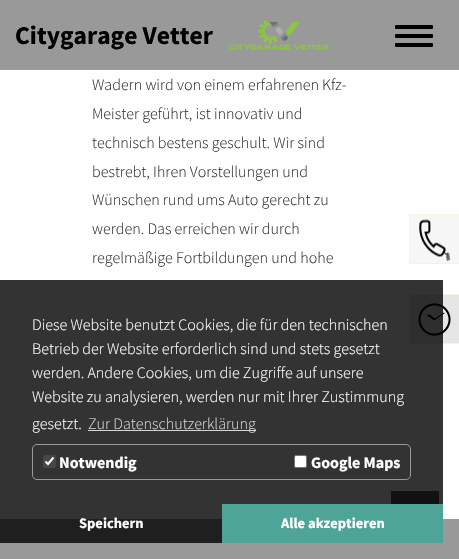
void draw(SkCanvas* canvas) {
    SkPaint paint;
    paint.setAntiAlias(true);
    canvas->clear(0xFFFFFFFF);
    paint.setColor(0xFF999999);
    canvas->drawRect(SkRect::MakeXYWH(0, 0, 459, 70), paint);
    SkFont font1(fontMgr->matchFamilyStyle("Source Sans Pro", SkFontStyle::Bold()), 25.5f);
    font1.setSubpixel(true);
    paint.setColor(0xFF000000);
    canvas->drawString("Citygarage Vetter", 15, 44, font1, paint);
    canvas->drawImageRect(SkImages::DeferredFromEncodedData(SkData::MakeFromFileName("img1.png")), SkRect::MakeXYWH(228, 20, 101, 30), SkSamplingOptions());
    canvas->drawRoundRect(SkRect::MakeXYWH(395, 25, 38, 4), 1, 1, paint);
    canvas->drawRoundRect(SkRect::MakeXYWH(395, 34, 38, 4), 1, 1, paint);
    canvas->drawRoundRect(SkRect::MakeXYWH(395, 43, 38, 4), 1, 1, paint);
    SkFont font2(fontMgr->matchFamilyStyle("Source Sans Pro", SkFontStyle(300, SkFontStyle::kNormal_Width, SkFontStyle::kUpright_Slant)), 16);
    font2.setSubpixel(true);
    paint.setColor(0xFF333333);
    canvas->drawString("Wadern wird von einem erfahrenen Kfz-", 92, 90, font2, paint);
    canvas->drawString("Meister geführt, ist innovativ und", 92, 119, font2, paint);
    canvas->drawString("technisch bestens geschult. Wir sind", 92, 148, font2, paint);
    canvas->drawString("bestrebt, Ihren Vorstellungen und", 92, 177, font2, paint);
    canvas->drawString("Wünschen rund ums Auto gerecht zu", 92, 205, font2, paint);
    canvas->drawString("werden. Das erreichen wir durch", 92, 234, font2, paint);
    canvas->drawString("regelmäßige Fortbildungen und hohe", 92, 263, font2, paint);
    paint.setColor(0xFFF7F7F7);
    canvas->drawRect(SkRect::MakeXYWH(410, 215, 49, 48), paint);
    canvas->drawImageRect(SkImages::DeferredFromEncodedData(SkData::MakeFromFileName("img2.png")), SkRect::MakeXYWH(419, 219, 32, 42), SkSamplingOptions());
    paint.setColor(0xFFF5F5DC);
    canvas->drawRect(SkRect::MakeXYWH(409, 214, 50, 1), paint);
    canvas->drawRect(SkRect::MakeXYWH(409, 263, 50, 1), paint);
    canvas->drawRect(SkRect::MakeXYWH(409, 214, 1, 50), paint);
    paint.setColor(0xFFE6E6E6);
    canvas->drawRect(SkRect::MakeXYWH(410, 295, 49, 48), paint);
    canvas->drawImageRect(SkImages::DeferredFromEncodedData(SkData::MakeFromFileName("img3.png")), SkRect::MakeXYWH(418, 303, 33, 33), SkSamplingOptions());
    paint.setColor(0xFFF5F5DC);
    canvas->drawRect(SkRect::MakeXYWH(409, 294, 50, 1), paint);
    canvas->drawRect(SkRect::MakeXYWH(409, 343, 50, 1), paint);
    canvas->drawRect(SkRect::MakeXYWH(409, 294, 1, 50), paint);
    paint.setColor(0xFF555555);
    canvas->drawRect(SkRect::MakeXYWH(391, 491, 48, 13), paint);
    paint.setColor(0xFF999999);
    canvas->drawRect(SkRect::MakeXYWH(0, 519, 459, 40), paint);
    paint.setColor(0xCC000000);
    canvas->drawRect(SkRect::MakeXYWH(0, 280, 443, 263), paint);
    paint.setColor(0xFFFFFFFF);
    canvas->drawString("Diese Website benutzt Cookies, die für den technischen", 32, 330, font2, paint);
    canvas->drawString("Betrieb der Website erforderlich sind und stets gesetzt", 32, 354, font2, paint);
    canvas->drawString("werden. Andere Cookies, um die Zugriffe auf unsere", 32, 378, font2, paint);
    canvas->drawString("Website zu analysieren, werden nur mit Ihrer Zustimmung", 32, 402, font2, paint);
    canvas->drawString("gesetzt.", 32, 429, font2, paint);
    paint.setColor(0xFFD6D6D6);
    canvas->drawRect(SkRect::MakeXYWH(88, 430, 168, 1), paint);
    canvas->drawString("Zur Datenschutzerklärung", 88, 429, font2, paint);
    paint.setStyle(SkPaint::kStroke_Style);
    paint.setStrokeWidth(1);
    paint.setColor(0xFF999999);
    canvas->drawRoundRect(SkRect::MakeXYWH(32.5f, 444.5f, 378, 35), 4.5f, 4.5f, paint);
    paint.setStyle(SkPaint::kFill_Style);
    paint.setColor(0xFF474747);
    canvas->drawRoundRect(SkRect::MakeXYWH(43, 455, 13, 13), 2, 2, paint);
    paint.setStyle(SkPaint::kStroke_Style);
    paint.setStrokeWidth(2.1f);
    paint.setColor(0xFFFFFFFF);
    canvas->drawPath(SkPathBuilder().moveTo(45.5f, 461.5f).lineTo(48, 464).lineTo(53.5f, 457.5f).detach(), paint);
    SkFont font3(fontMgr->matchFamilyStyle("Source Sans Pro", SkFontStyle::Bold()), 16);
    font3.setSubpixel(true);
    paint.setStyle(SkPaint::kFill_Style);
    canvas->drawString("Notwendig", 59, 468, font3, paint);
    canvas->drawRoundRect(SkRect::MakeXYWH(294.5f, 455.5f, 12, 12), 1.5f, 1.5f, paint);
    paint.setStyle(SkPaint::kStroke_Style);
    paint.setStrokeWidth(1);
    paint.setColor(0xFF767676);
    canvas->drawRoundRect(SkRect::MakeXYWH(294.5f, 455.5f, 12, 12), 1.5f, 1.5f, paint);
    paint.setStyle(SkPaint::kFill_Style);
    paint.setColor(0xFFFFFFFF);
    canvas->drawString("Google Maps", 311, 468, font3, paint);
    SkFont font4(fontMgr->matchFamilyStyle("Source Sans Pro", SkFontStyle::Bold()), 14.5f);
    font4.setSubpixel(true);
    canvas->drawString("Speichern", 79, 528, font4, paint);
    paint.setColor(0xFF4FA498);
    canvas->drawRect(SkRect::MakeXYWH(222, 504, 221, 39), paint);
    paint.setColor(0xFFFFFFFF);
    canvas->drawString("Alle akzeptieren", 281, 528, font4, paint);
}
